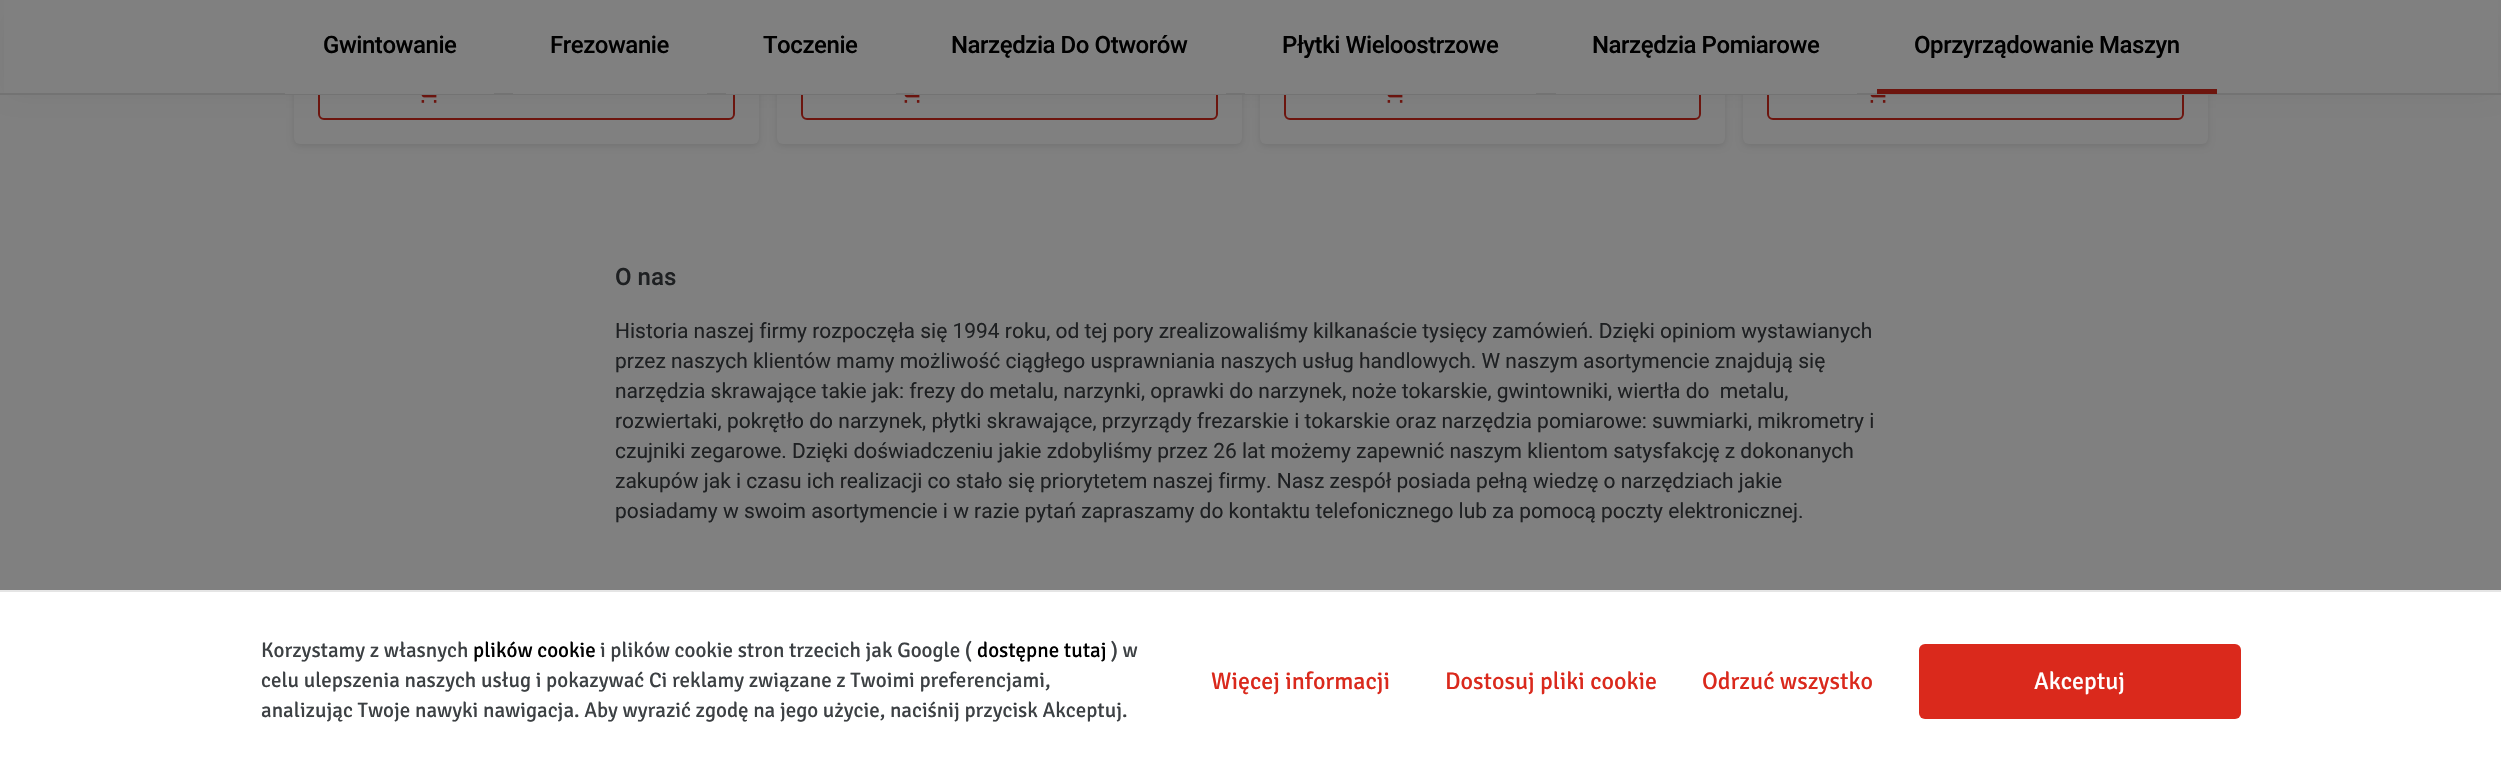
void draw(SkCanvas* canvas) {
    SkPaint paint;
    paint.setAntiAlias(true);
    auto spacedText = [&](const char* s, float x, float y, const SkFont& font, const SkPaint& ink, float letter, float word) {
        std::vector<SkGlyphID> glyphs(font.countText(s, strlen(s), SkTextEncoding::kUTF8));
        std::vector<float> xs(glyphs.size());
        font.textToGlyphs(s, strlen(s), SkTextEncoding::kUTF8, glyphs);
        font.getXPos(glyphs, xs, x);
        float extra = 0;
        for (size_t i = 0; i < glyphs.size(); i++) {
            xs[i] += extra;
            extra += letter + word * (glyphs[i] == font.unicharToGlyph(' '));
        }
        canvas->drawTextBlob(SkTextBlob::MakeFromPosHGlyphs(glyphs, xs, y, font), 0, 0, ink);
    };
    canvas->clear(0xFF808080);
    paint.setColor(0x1A000000);
    paint.setMaskFilter(SkMaskFilter::MakeBlur(kNormal_SkBlurStyle, 3));
    canvas->drawRoundRect(SkRect::MakeXYWH(294, -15, 465, 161), 6, 6, paint);
    paint.setMaskFilter(nullptr);
    paint.setColor(0xFF808080);
    canvas->drawRoundRect(SkRect::MakeXYWH(294, -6, 465, 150), 6, 6, paint);
    paint.setStyle(SkPaint::kStroke_Style);
    paint.setStrokeWidth(2);
    paint.setColor(0xFF6D150E);
    canvas->drawRoundRect(SkRect::MakeXYWH(319, 58, 415, 61), 5, 5, paint);
    canvas->drawImageRect(SkImages::DeferredFromEncodedData(SkData::MakeFromFileName("img1.png")), SkRect::MakeXYWH(421, 95, 16, 8), SkSamplingOptions());
    paint.setStyle(SkPaint::kFill_Style);
    paint.setColor(0x1A000000);
    paint.setMaskFilter(SkMaskFilter::MakeBlur(kNormal_SkBlurStyle, 3));
    canvas->drawRoundRect(SkRect::MakeXYWH(777, -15, 465, 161), 6, 6, paint);
    paint.setMaskFilter(nullptr);
    paint.setColor(0xFF808080);
    canvas->drawRoundRect(SkRect::MakeXYWH(777, -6, 465, 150), 6, 6, paint);
    paint.setStyle(SkPaint::kStroke_Style);
    paint.setColor(0xFF6D150E);
    canvas->drawRoundRect(SkRect::MakeXYWH(802, 58, 415, 61), 5, 5, paint);
    canvas->drawImageRect(SkImages::DeferredFromEncodedData(SkData::MakeFromFileName("img1.png")), SkRect::MakeXYWH(904, 95, 16, 8), SkSamplingOptions());
    paint.setStyle(SkPaint::kFill_Style);
    paint.setColor(0x1A000000);
    paint.setMaskFilter(SkMaskFilter::MakeBlur(kNormal_SkBlurStyle, 3));
    canvas->drawRoundRect(SkRect::MakeXYWH(1260, -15, 465, 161), 6, 6, paint);
    paint.setMaskFilter(nullptr);
    paint.setColor(0xFF808080);
    canvas->drawRoundRect(SkRect::MakeXYWH(1260, -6, 465, 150), 6, 6, paint);
    paint.setStyle(SkPaint::kStroke_Style);
    paint.setColor(0xFF6D150E);
    canvas->drawRoundRect(SkRect::MakeXYWH(1285, 58, 415, 61), 5, 5, paint);
    canvas->drawImageRect(SkImages::DeferredFromEncodedData(SkData::MakeFromFileName("img1.png")), SkRect::MakeXYWH(1387, 95, 16, 8), SkSamplingOptions());
    paint.setStyle(SkPaint::kFill_Style);
    paint.setColor(0x1A000000);
    paint.setMaskFilter(SkMaskFilter::MakeBlur(kNormal_SkBlurStyle, 3));
    canvas->drawRoundRect(SkRect::MakeXYWH(1743, -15, 465, 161), 6, 6, paint);
    paint.setMaskFilter(nullptr);
    paint.setColor(0xFF808080);
    canvas->drawRoundRect(SkRect::MakeXYWH(1743, -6, 465, 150), 6, 6, paint);
    paint.setStyle(SkPaint::kStroke_Style);
    paint.setColor(0xFF6D150E);
    canvas->drawRoundRect(SkRect::MakeXYWH(1768, 58, 415, 61), 5, 5, paint);
    canvas->drawImageRect(SkImages::DeferredFromEncodedData(SkData::MakeFromFileName("img1.png")), SkRect::MakeXYWH(1870, 95, 16, 8), SkSamplingOptions());
    paint.setStyle(SkPaint::kFill_Style);
    paint.setColor(0x14000000);
    paint.setMaskFilter(SkMaskFilter::MakeBlur(kNormal_SkBlurStyle, 12));
    canvas->drawRect(SkRect::MakeXYWH(12, 18, 2478, 71), paint);
    paint.setMaskFilter(nullptr);
    paint.setColor(0xFF808080);
    canvas->drawRect(SkRect::MakeXYWH(4, 0, 2494, 93), paint);
    paint.setColor(0xFF737373);
    canvas->drawRect(SkRect::MakeXYWH(0, 93, 2501, 2), paint);
    paint.setColor(0xFF808080);
    canvas->drawRect(SkRect::MakeXYWH(285, 93, 209, 1), paint);
    SkFont font1(fontMgr->matchFamilyStyle("Roboto", SkFontStyle(500, SkFontStyle::kNormal_Width, SkFontStyle::kUpright_Slant)), 24);
    font1.setSubpixel(true);
    paint.setColor(0xFF000000);
    spacedText("Gwintowanie", 323, 53, font1, paint, -0.45f, 0);
    paint.setColor(0xFF808080);
    canvas->drawRect(SkRect::MakeXYWH(513, 93, 194, 1), paint);
    paint.setColor(0xFF000000);
    spacedText("Frezowanie", 550, 53, font1, paint, -0.45f, 0);
    paint.setColor(0xFF808080);
    canvas->drawRect(SkRect::MakeXYWH(726, 93, 170, 1), paint);
    paint.setColor(0xFF000000);
    spacedText("Toczenie", 763, 53, font1, paint, -0.45f, 0);
    paint.setColor(0xFF808080);
    canvas->drawRect(SkRect::MakeXYWH(914, 93, 312, 1), paint);
    paint.setColor(0xFF000000);
    spacedText("Narzędzia Do Otworów", 951, 53, font1, paint, -0.45f, 0);
    paint.setColor(0xFF808080);
    canvas->drawRect(SkRect::MakeXYWH(1245, 93, 291, 1), paint);
    paint.setColor(0xFF000000);
    spacedText("Płytki Wieloostrzowe", 1282, 53, font1, paint, -0.45f, 0);
    paint.setColor(0xFF808080);
    canvas->drawRect(SkRect::MakeXYWH(1556, 93, 301, 1), paint);
    paint.setColor(0xFF000000);
    spacedText("Narzędzia Pomiarowe", 1592, 53, font1, paint, -0.45f, 0);
    paint.setColor(0xFF6D150E);
    canvas->drawRect(SkRect::MakeXYWH(1877, 89, 340, 5), paint);
    paint.setColor(0xFF000000);
    spacedText("Oprzyrządowanie Maszyn", 1914, 53, font1, paint, -0.45f, 0);
    paint.setColor(0xFF1E2022);
    canvas->drawString("O nas", 615, 285, font1, paint);
    SkFont font2(fontMgr->matchFamilyStyle("Roboto", SkFontStyle::Normal()), 21);
    font2.setSubpixel(true);
    canvas->drawString("Historia naszej firmy rozpoczęła się 1994 roku, od tej pory zrealizowaliśmy kilkanaście tysięcy zamówień. Dzięki opiniom wystawianych", 615, 338, font2, paint);
    canvas->drawString("przez naszych klientów mamy możliwość ciągłego usprawniania naszych usług handlowych. W naszym asortymencie znajdują się", 615, 368, font2, paint);
    canvas->drawString("narzędzia skrawające takie jak: frezy do metalu, narzynki, oprawki do narzynek, noże tokarskie, gwintowniki, wiertła do  metalu,", 615, 398, font2, paint);
    canvas->drawString("rozwiertaki, pokrętło do narzynek, płytki skrawające, przyrządy frezarskie i tokarskie oraz narzędzia pomiarowe: suwmiarki, mikrometry i", 615, 428, font2, paint);
    canvas->drawString("czujniki zegarowe. Dzięki doświadczeniu jakie zdobyliśmy przez 26 lat możemy zapewnić naszym klientom satysfakcję z dokonanych", 615, 458, font2, paint);
    canvas->drawString("zakupów jak i czasu ich realizacji co stało się priorytetem naszej firmy. Nasz zespół posiada pełną wiedzę o narzędziach jakie", 615, 488, font2, paint);
    canvas->drawString("posiadamy w swoim asortymencie i w razie pytań zapraszamy do kontaktu telefonicznego lub za pomocą poczty elektronicznej.", 615, 518, font2, paint);
    paint.setColor(0xFFFFFFFF);
    canvas->drawRect(SkRect::MakeXYWH(0, 592, 2501, 178), paint);
    paint.setColor(0xFFE5E5E5);
    canvas->drawRect(SkRect::MakeXYWH(0, 590, 2501, 2), paint);
    SkFont font3(fontMgr->matchFamilyStyle("Signika", SkFontStyle::Normal()), 21);
    font3.setSubpixel(true);
    paint.setColor(0xFF3C4043);
    canvas->drawString("Korzystamy z własnych", 261, 657, font3, paint);
    paint.setColor(0xFF000000);
    canvas->drawString("plików cookie", 473, 657, font3, paint);
    paint.setColor(0xFF3C4043);
    canvas->drawString("i plików cookie stron trzecich jak Google (", 600, 657, font3, paint);
    paint.setColor(0xFF000000);
    canvas->drawString("dostępne tutaj", 977, 657, font3, paint);
    paint.setColor(0xFF3C4043);
    canvas->drawString(") w", 1111, 657, font3, paint);
    canvas->drawString("celu ulepszenia naszych usług i pokazywać Ci reklamy związane z Twoimi preferencjami,", 261, 687, font3, paint);
    canvas->drawString("analizując Twoje nawyki nawigacja. Aby wyrazić zgodę na jego użycie, naciśnij przycisk Akceptuj.", 261, 717, font3, paint);
    SkFont font4(fontMgr->matchFamilyStyle("Signika", SkFontStyle::Normal()), 24);
    font4.setSubpixel(true);
    paint.setColor(0xFFDA291C);
    canvas->drawString("Więcej informacji", 1211, 689, font4, paint);
    canvas->drawString("Dostosuj pliki cookie", 1445, 689, font4, paint);
    canvas->drawString("Odrzuć wszystko", 1702, 689, font4, paint);
    canvas->drawRoundRect(SkRect::MakeXYWH(1919, 644, 322, 75), 6, 6, paint);
    paint.setColor(0xFFFFFFFF);
    canvas->drawString("Akceptuj", 2034, 689, font4, paint);
}
